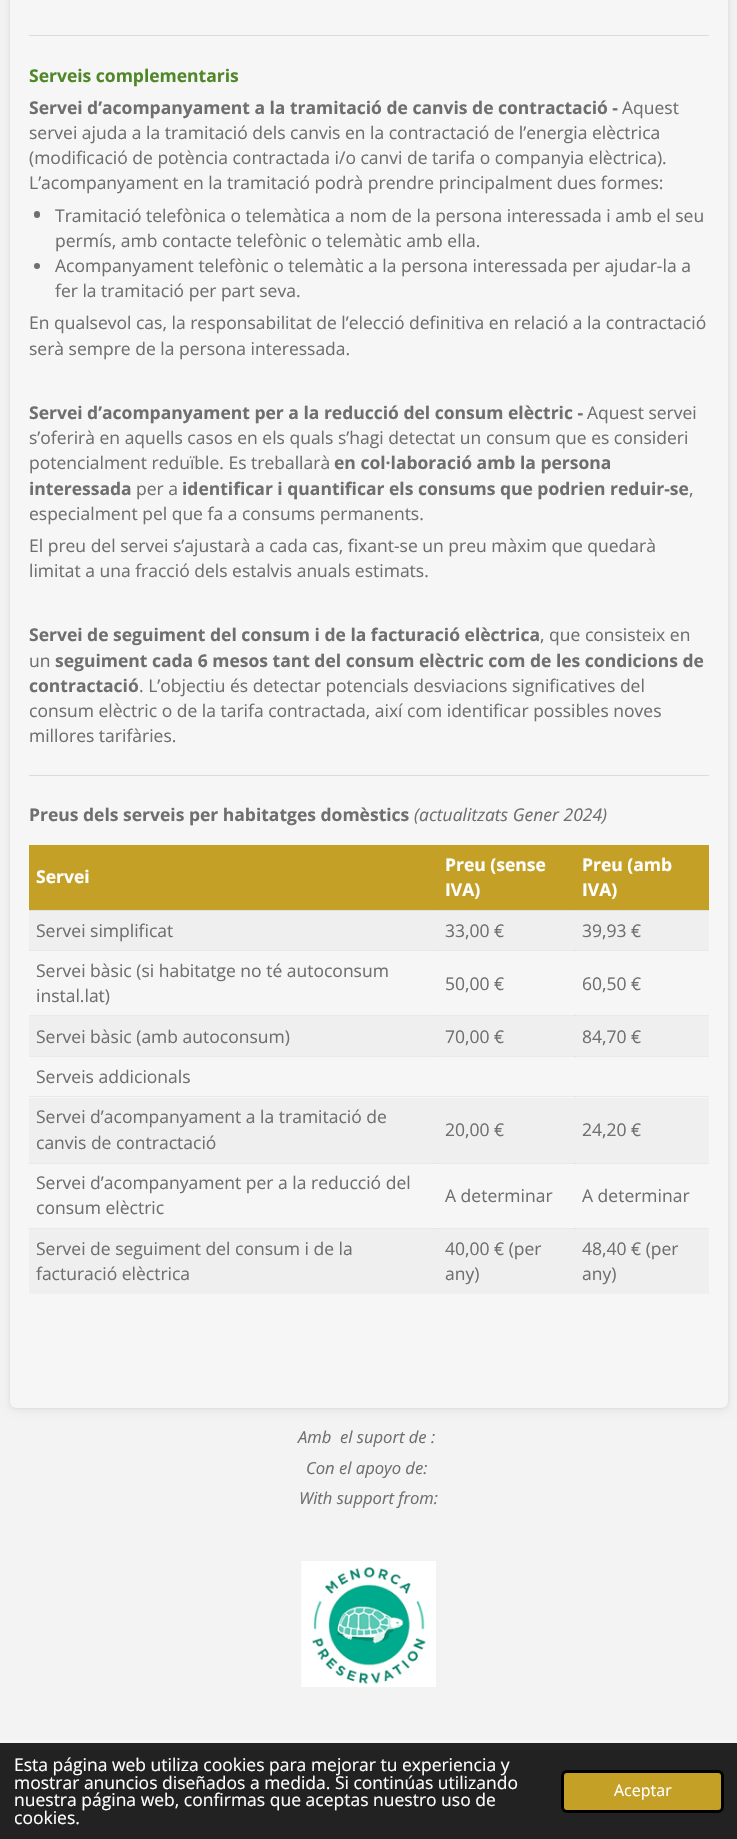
void draw(SkCanvas* canvas) {
    SkPaint paint;
    paint.setAntiAlias(true);
    canvas->clear(0xFFF4F3F3);
    paint.setColor(0x1A000000);
    paint.setMaskFilter(SkMaskFilter::MakeBlur(kNormal_SkBlurStyle, 1));
    canvas->drawRoundRect(SkRect::MakeXYWH(10, -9, 718, 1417), 6, 6, paint);
    paint.setMaskFilter(nullptr);
    paint.setColor(0x12000000);
    paint.setMaskFilter(SkMaskFilter::MakeBlur(kNormal_SkBlurStyle, 5));
    canvas->drawRoundRect(SkRect::MakeXYWH(10, -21, 718, 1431), 6, 6, paint);
    paint.setMaskFilter(nullptr);
    paint.setColor(0xFFF6F6F6);
    canvas->drawRoundRect(SkRect::MakeXYWH(10, -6, 718, 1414), 6, 6, paint);
    paint.setColor(0xFFE9E9E9);
    canvas->drawRect(SkRect::MakeXYWH(29, 950, 680, 1), paint);
    paint.setColor(0xFFDDDDDD);
    canvas->drawRect(SkRect::MakeXYWH(438, 950, 1, 1), paint);
    paint.setColor(0xFFE9E9E9);
    canvas->drawRect(SkRect::MakeXYWH(29, 1015, 680, 1), paint);
    paint.setColor(0xFFDDDDDD);
    canvas->drawRect(SkRect::MakeXYWH(438, 1015, 1, 1), paint);
    paint.setColor(0xFFE9E9E9);
    canvas->drawRect(SkRect::MakeXYWH(29, 1056, 680, 1), paint);
    paint.setColor(0xFFDDDDDD);
    canvas->drawRect(SkRect::MakeXYWH(438, 1056, 1, 1), paint);
    paint.setColor(0xFFE9E9E9);
    canvas->drawRect(SkRect::MakeXYWH(29, 1096, 680, 1), paint);
    paint.setColor(0xFFDDDDDD);
    canvas->drawRect(SkRect::MakeXYWH(438, 1096, 1, 1), paint);
    paint.setColor(0xFFE9E9E9);
    canvas->drawRect(SkRect::MakeXYWH(29, 1163, 680, 1), paint);
    paint.setColor(0xFFDDDDDD);
    canvas->drawRect(SkRect::MakeXYWH(438, 1163, 1, 1), paint);
    paint.setColor(0xFFE9E9E9);
    canvas->drawRect(SkRect::MakeXYWH(29, 1228, 680, 1), paint);
    paint.setColor(0xFFDDDDDD);
    canvas->drawRect(SkRect::MakeXYWH(438, 1228, 1, 1), paint);
    paint.setColor(0xFFDBDBDB);
    canvas->drawRect(SkRect::MakeXYWH(29, 35, 680, 1), paint);
    SkFont font1(fontMgr->matchFamilyStyle("Open Sans", SkFontStyle::Bold()), 17.5f);
    font1.setSubpixel(true);
    paint.setColor(0xFF508729);
    canvas->drawString("Serveis complementaris", 29, 82, font1, paint);
    paint.setColor(0xFF6F6F6F);
    canvas->drawString("Servei d’acompanyament a la tramitació de canvis de contractació -", 29, 114, font1, paint);
    SkFont font2(fontMgr->matchFamilyStyle("Open Sans", SkFontStyle::Normal()), 17.5f);
    font2.setSubpixel(true);
    canvas->drawString("Aquest", 622, 114, font2, paint);
    canvas->drawString("servei ajuda a la tramitació dels canvis en la contractació de l’energia elèctrica", 29, 139, font2, paint);
    canvas->drawString("(modificació de potència contractada i/o canvi de tarifa o companyia elèctrica).", 29, 164, font2, paint);
    canvas->drawString("L’acompanyament en la tramitació podrà prendre principalment dues formes:", 29, 189, font2, paint);
    canvas->drawRoundRect(SkRect::MakeXYWH(34, 211, 6, 7), 3, 3, paint);
    canvas->drawString("Tramitació telefònica o telemàtica a nom de la persona interessada i amb el seu", 55, 222, font2, paint);
    canvas->drawString("permís, amb contacte telefònic o telemàtic amb ella.", 55, 247, font2, paint);
    canvas->drawCircle(37, 266, 3, paint);
    canvas->drawString("Acompanyament telefònic o telemàtic a la persona interessada per ajudar-la a", 55, 272, font2, paint);
    canvas->drawString("fer la tramitació per part seva.", 55, 297, font2, paint);
    canvas->drawString("En qualsevol cas, la responsabilitat de l’elecció definitiva en relació a la contractació", 29, 329, font2, paint);
    canvas->drawString("serà sempre de la persona interessada.", 29, 355, font2, paint);
    canvas->drawString("Servei d’acompanyament per a la reducció del consum elèctric -", 29, 419, font1, paint);
    canvas->drawString("Aquest servei", 587, 419, font2, paint);
    canvas->drawString("s’oferirà en aquells casos en els quals s’hagi detectat un consum que es consideri", 29, 444, font2, paint);
    canvas->drawString("potencialment reduïble. Es treballarà", 29, 469, font2, paint);
    canvas->drawString("en col·laboració amb la persona", 334, 469, font1, paint);
    canvas->drawString("interessada", 29, 495, font1, paint);
    canvas->drawString("per a", 136, 495, font2, paint);
    canvas->drawString("identificar i quantificar els consums que podrien reduir-se", 182, 495, font1, paint);
    canvas->drawString(",", 689, 495, font2, paint);
    canvas->drawString("especialment pel que fa a consums permanents.", 29, 520, font2, paint);
    canvas->drawString("El preu del servei s’ajustarà a cada cas, fixant-se un preu màxim que quedarà", 29, 552, font2, paint);
    canvas->drawString("limitat a una fracció dels estalvis anuals estimats.", 29, 577, font2, paint);
    canvas->drawString("Servei de seguiment del consum i de la facturació elèctrica", 29, 641, font1, paint);
    canvas->drawString(", que consisteix en", 540, 641, font2, paint);
    canvas->drawString("un", 29, 667, font2, paint);
    canvas->drawString("seguiment cada 6 mesos tant del consum elèctric com de les condicions de", 55, 667, font1, paint);
    canvas->drawString("contractació", 29, 692, font1, paint);
    canvas->drawString(". L’objectiu és detectar potencials desviacions significatives del", 139, 692, font2, paint);
    canvas->drawString("consum elèctric o de la tarifa contractada, així com identificar possibles noves", 29, 717, font2, paint);
    canvas->drawString("millores tarifàries.", 29, 742, font2, paint);
    paint.setColor(0xFFDBDBDB);
    canvas->drawRect(SkRect::MakeXYWH(29, 775, 680, 1), paint);
    paint.setColor(0xFF6F6F6F);
    canvas->drawString("Preus dels serveis per habitatges domèstics", 29, 821, font1, paint);
    SkFont font3(fontMgr->matchFamilyStyle("Open Sans", SkFontStyle::Italic()), 17.5f);
    font3.setSubpixel(true);
    canvas->drawString("(actualitzats Gener 2024)", 414, 821, font3, paint);
    paint.setColor(0xFFC4A027);
    canvas->drawRect(SkRect::MakeXYWH(29, 845, 680, 65), paint);
    paint.setColor(0xFFFFFFFF);
    canvas->drawString("Servei", 36, 883, font1, paint);
    canvas->drawString("Preu (sense", 445, 871, font1, paint);
    canvas->drawString("IVA)", 445, 896, font1, paint);
    canvas->drawString("Preu (amb", 582, 871, font1, paint);
    canvas->drawString("IVA)", 582, 896, font1, paint);
    paint.setColor(0xFFEFEFEF);
    canvas->drawRect(SkRect::MakeXYWH(29, 911, 680, 39), paint);
    paint.setColor(0xFFE2E2E2);
    canvas->drawRect(SkRect::MakeXYWH(29, 910, 680, 1), paint);
    paint.setColor(0xFFD7D7D7);
    canvas->drawRect(SkRect::MakeXYWH(438, 910, 1, 1), paint);
    paint.setColor(0xFF6F6F6F);
    canvas->drawString("Servei simplificat", 36, 937, font2, paint);
    canvas->drawString("33,00 €", 445, 937, font2, paint);
    paint.setColor(0xFFD7D7D7);
    canvas->drawRect(SkRect::MakeXYWH(575, 910, 1, 1), paint);
    paint.setColor(0xFF6F6F6F);
    canvas->drawString("39,93 €", 582, 937, font2, paint);
    canvas->drawString("Servei bàsic (si habitatge no té autoconsum", 36, 977, font2, paint);
    canvas->drawString("instal.lat)", 36, 1002, font2, paint);
    canvas->drawString("50,00 €", 445, 990, font2, paint);
    paint.setColor(0xFFDDDDDD);
    canvas->drawRect(SkRect::MakeXYWH(575, 950, 1, 1), paint);
    paint.setColor(0xFF6F6F6F);
    canvas->drawString("60,50 €", 582, 990, font2, paint);
    paint.setColor(0xFFEFEFEF);
    canvas->drawRect(SkRect::MakeXYWH(29, 1016, 680, 40), paint);
    paint.setColor(0xFF6F6F6F);
    canvas->drawString("Servei bàsic (amb autoconsum)", 36, 1043, font2, paint);
    canvas->drawString("70,00 €", 445, 1043, font2, paint);
    paint.setColor(0xFFDDDDDD);
    canvas->drawRect(SkRect::MakeXYWH(575, 1015, 1, 1), paint);
    paint.setColor(0xFF6F6F6F);
    canvas->drawString("84,70 €", 582, 1043, font2, paint);
    paint.setColor(0xFFDDDDDD);
    canvas->drawRect(SkRect::MakeXYWH(575, 1056, 1, 1), paint);
    paint.setColor(0xFF6F6F6F);
    canvas->drawString("Serveis addicionals", 36, 1083, font2, paint);
    paint.setColor(0xFFEFEFEF);
    canvas->drawRect(SkRect::MakeXYWH(29, 1098, 680, 65), paint);
    paint.setColor(0xFF6F6F6F);
    canvas->drawString("Servei d’acompanyament a la tramitació de", 36, 1123, font2, paint);
    canvas->drawString("canvis de contractació", 36, 1149, font2, paint);
    canvas->drawString("20,00 €", 445, 1136, font2, paint);
    paint.setColor(0xFFDDDDDD);
    canvas->drawRect(SkRect::MakeXYWH(575, 1096, 1, 1), paint);
    paint.setColor(0xFF6F6F6F);
    canvas->drawString("24,20 €", 582, 1136, font2, paint);
    canvas->drawString("Servei d’acompanyament per a la reducció del", 36, 1189, font2, paint);
    canvas->drawString("consum elèctric", 36, 1214, font2, paint);
    canvas->drawString("A determinar", 445, 1202, font2, paint);
    paint.setColor(0xFFDDDDDD);
    canvas->drawRect(SkRect::MakeXYWH(575, 1163, 1, 1), paint);
    paint.setColor(0xFF6F6F6F);
    canvas->drawString("A determinar", 582, 1202, font2, paint);
    paint.setColor(0xFFEFEFEF);
    canvas->drawRect(SkRect::MakeXYWH(29, 1229, 680, 65), paint);
    paint.setColor(0xFF6F6F6F);
    canvas->drawString("Servei de seguiment del consum i de la", 36, 1255, font2, paint);
    canvas->drawString("facturació elèctrica", 36, 1280, font2, paint);
    canvas->drawString("40,00 € (per", 445, 1255, font2, paint);
    canvas->drawString("any)", 445, 1280, font2, paint);
    paint.setColor(0xFFDDDDDD);
    canvas->drawRect(SkRect::MakeXYWH(575, 1228, 1, 1), paint);
    paint.setColor(0xFF6F6F6F);
    canvas->drawString("48,40 € (per", 582, 1255, font2, paint);
    canvas->drawString("any)", 582, 1280, font2, paint);
    SkFont font4(fontMgr->matchFamilyStyle("Open Sans", SkFontStyle::Italic()), 16.6f);
    font4.setSubpixel(true);
    canvas->drawString("Amb  el suport de :", 298, 1443, font4, paint);
    canvas->drawString("Con el apoyo de:", 306, 1474, font4, paint);
    canvas->drawString("With support from:", 299, 1504, font4, paint);
    canvas->drawImageRect(SkImages::DeferredFromEncodedData(SkData::MakeFromFileName("img1.png")), SkRect::MakeXYWH(301, 1561, 135, 126), SkSamplingOptions());
    paint.setColor(0xFF222222);
    canvas->drawRect(SkRect::MakeXYWH(0, 1743, 737, 96), paint);
    paint.setColor(0xFFFFFFFF);
    canvas->drawString("Esta página web utiliza cookies para mejorar tu experiencia y", 14, 1771, font2, paint);
    canvas->drawString("mostrar anuncios diseñados a medida. Si continúas utilizando", 14, 1789, font2, paint);
    canvas->drawString("nuestra página web, confirmas que aceptas nuestro uso de", 14, 1806, font2, paint);
    canvas->drawString("cookies.", 14, 1824, font2, paint);
    paint.setColor(0xFFC4A027);
    canvas->drawRoundRect(SkRect::MakeXYWH(562.5f, 1771.5f, 160, 40), 4.5f, 4.5f, paint);
    paint.setStyle(SkPaint::kStroke_Style);
    paint.setStrokeWidth(3);
    paint.setColor(0xFF000000);
    canvas->drawRoundRect(SkRect::MakeXYWH(562.5f, 1771.5f, 160, 40), 4.5f, 4.5f, paint);
    SkFont font5(fontMgr->matchFamilyStyle("Open Sans", SkFontStyle::Normal()), 16);
    font5.setSubpixel(true);
    paint.setStyle(SkPaint::kFill_Style);
    paint.setColor(0xFFFFFFFF);
    canvas->drawString("Aceptar", 614, 1796, font5, paint);
}
